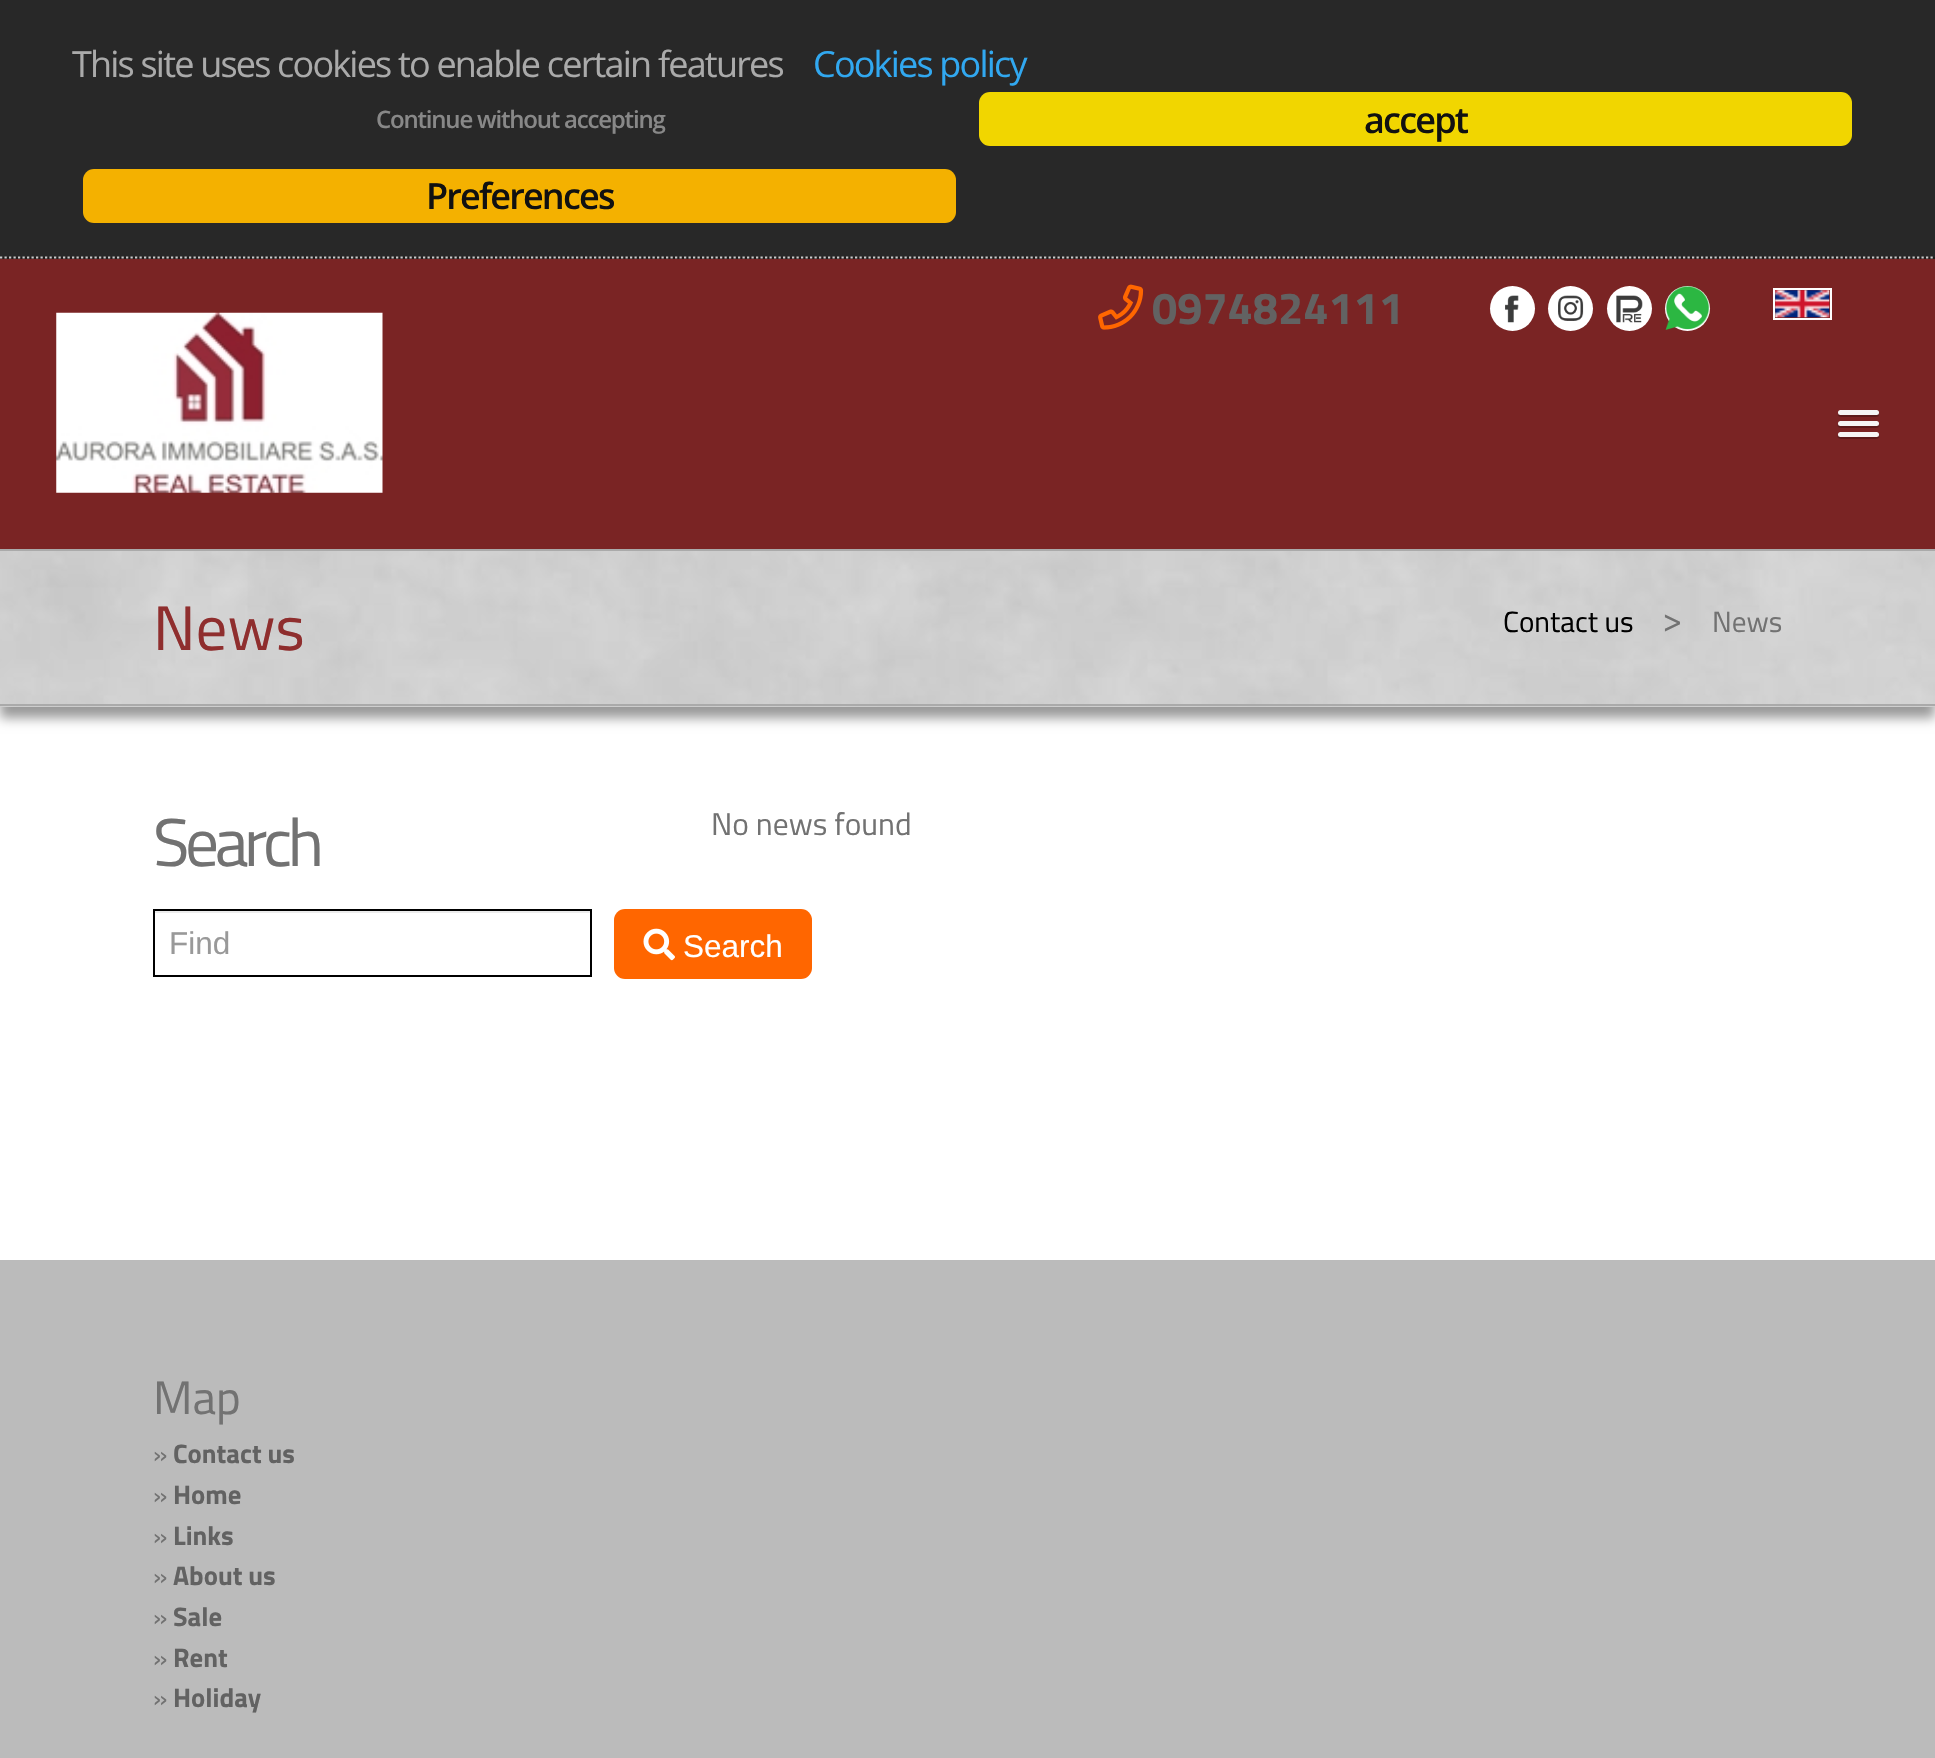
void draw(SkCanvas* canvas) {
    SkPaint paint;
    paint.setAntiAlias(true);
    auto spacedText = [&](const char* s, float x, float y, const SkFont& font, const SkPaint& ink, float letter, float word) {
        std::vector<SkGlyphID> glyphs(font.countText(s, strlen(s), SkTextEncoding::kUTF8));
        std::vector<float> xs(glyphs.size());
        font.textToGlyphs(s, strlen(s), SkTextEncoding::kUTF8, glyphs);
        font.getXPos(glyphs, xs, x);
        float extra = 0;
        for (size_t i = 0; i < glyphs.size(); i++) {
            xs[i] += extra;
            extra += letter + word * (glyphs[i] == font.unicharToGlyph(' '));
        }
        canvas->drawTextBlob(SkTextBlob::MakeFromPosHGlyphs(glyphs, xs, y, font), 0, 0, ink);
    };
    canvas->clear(0xFFFFFFFF);
    paint.setColor(0xFF282828);
    canvas->drawRect(SkRect::MakeXYWH(0, 0, 1935, 257), paint);
    paint.setColor(0xFF221D1D);
    canvas->drawRect(SkRect::MakeXYWH(0, 257, 1935, 2), paint);
    paint.setStyle(SkPaint::kStroke_Style);
    paint.setStrokeWidth(2.2f);
    paint.setColor(0xFFCCCCCC);
    paint.setPathEffect(SkDashPathEffect::Make({{2.25f, 2.25f}}, 0));
    canvas->drawPath(SkPathBuilder().moveTo(0, 257.5f).lineTo(1935, 257.5f).detach(), paint);
    paint.setPathEffect(nullptr);
    SkFont font1(fontMgr->matchFamilyStyle("Open Sans", SkFontStyle::Normal()), 36);
    font1.setSubpixel(true);
    paint.setStyle(SkPaint::kFill_Style);
    paint.setColor(0xFFAAAAAA);
    spacedText("This site uses cookies to enable certain features", 72, 77, font1, paint, -1.8f, 0);
    paint.setColor(0xFF31A8F0);
    spacedText("Cookies policy", 813, 77, font1, paint, -1.8f, 0);
    SkFont font2(fontMgr->matchFamilyStyle("Open Sans", SkFontStyle(600, SkFontStyle::kNormal_Width, SkFontStyle::kUpright_Slant)), 24);
    font2.setSubpixel(true);
    paint.setColor(0xFF888888);
    spacedText("Continue without accepting", 376, 128, font2, paint, -1.2f, 0);
    paint.setColor(0xFFF1D600);
    canvas->drawRoundRect(SkRect::MakeXYWH(979, 92, 873, 54), 11, 11, paint);
    SkFont font3(fontMgr->matchFamilyStyle("Open Sans", SkFontStyle(600, SkFontStyle::kNormal_Width, SkFontStyle::kUpright_Slant)), 36);
    font3.setSubpixel(true);
    paint.setColor(0xFF111111);
    spacedText("accept", 1364, 133, font3, paint, -1.8f, 0);
    paint.setColor(0xFFF4B100);
    canvas->drawRoundRect(SkRect::MakeXYWH(83, 169, 873, 54), 11, 11, paint);
    paint.setColor(0xFF111111);
    spacedText("Preferences", 426, 209, font3, paint, -1.8f, 0);
    paint.setColor(0xFF999999);
    paint.setMaskFilter(SkMaskFilter::MakeBlur(kNormal_SkBlurStyle, 5.5f));
    canvas->drawRect(SkRect::MakeXYWH(0, 560, 1935, 158), paint);
    paint.setMaskFilter(nullptr);
    paint.setColor(0xFF7A2424);
    canvas->drawRect(SkRect::MakeXYWH(0, 259, 1935, 290), paint);
    canvas->drawImageRect(SkImages::DeferredFromEncodedData(SkData::MakeFromFileName("img1.png")), SkRect::MakeXYWH(56, 312, 327, 181), SkSamplingOptions());
    canvas->drawImageRect(SkImages::DeferredFromEncodedData(SkData::MakeFromFileName("img2.png")), SkRect::MakeXYWH(1098, 284, 46, 46), SkSamplingOptions());
    SkFont font4(fontMgr->matchFamilyStyle("Titillium Web", SkFontStyle::Bold()), 45);
    font4.setSubpixel(true);
    paint.setColor(0xFF626262);
    canvas->drawString("0974824111", 1152, 324, font4, paint);
    paint.setColor(0xFFFFFFFF);
    canvas->drawCircle(1512.5f, 308.5f, 22.5f, paint);
    canvas->drawImageRect(SkImages::DeferredFromEncodedData(SkData::MakeFromFileName("img3.png")), SkRect::MakeXYWH(1505, 295, 14, 28), SkSamplingOptions());
    canvas->drawCircle(1570.5f, 308.5f, 22.5f, paint);
    canvas->drawImageRect(SkImages::DeferredFromEncodedData(SkData::MakeFromFileName("img4.png")), SkRect::MakeXYWH(1558, 295, 26, 26), SkSamplingOptions());
    canvas->drawCircle(1629.5f, 308.5f, 22.5f, paint);
    canvas->drawImageRect(SkImages::DeferredFromEncodedData(SkData::MakeFromFileName("img5.png")), SkRect::MakeXYWH(1616, 295, 27, 28), SkSamplingOptions());
    canvas->drawCircle(1687.5f, 308.5f, 22.5f, paint);
    canvas->drawImageRect(SkImages::DeferredFromEncodedData(SkData::MakeFromFileName("img6.png")), SkRect::MakeXYWH(1665, 285, 45, 45), SkSamplingOptions());
    paint.setStyle(SkPaint::kStroke_Style);
    paint.setStrokeWidth(2);
    canvas->drawRect(SkRect::MakeXYWH(1774, 289, 57, 30), paint);
    canvas->drawImageRect(SkImages::DeferredFromEncodedData(SkData::MakeFromFileName("img7.png")), SkRect::MakeXYWH(1775, 290, 55, 28), SkSamplingOptions());
    paint.setStyle(SkPaint::kFill_Style);
    paint.setColor(0xFF5C1B1B);
    canvas->drawPath(SkPathBuilder().moveTo(1839, 413).cubicTo(1834, 418, 1846, 417, 1846, 417).lineTo(1870, 417).cubicTo(1871, 417, 1883, 418, 1878, 413).lineTo(1877, 414).lineTo(1840, 414).close().detach(), paint);
    paint.setColor(0xFFF5F5F5);
    canvas->drawRoundRect(SkRect::MakeXYWH(1838, 410, 41, 5), 2.5f, 2.5f, paint);
    paint.setColor(0xFF5C1B1B);
    canvas->drawPath(SkPathBuilder().moveTo(1838, 424).cubicTo(1835, 429, 1846, 428, 1846, 428).lineTo(1870, 428).cubicTo(1871, 428, 1882, 429, 1879, 424).cubicTo(1878, 425, 1877, 425, 1876, 425).lineTo(1840, 425).cubicTo(1840, 425, 1839, 425, 1838, 424).close().detach(), paint);
    paint.setColor(0xFFF5F5F5);
    canvas->drawRoundRect(SkRect::MakeXYWH(1838, 421, 41, 5), 2.5f, 2.5f, paint);
    paint.setColor(0xFF5C1B1B);
    canvas->drawPath(SkPathBuilder().moveTo(1838, 435).cubicTo(1835, 440, 1846, 439, 1846, 439).lineTo(1870, 439).cubicTo(1871, 439, 1882, 440, 1879, 435).cubicTo(1878, 436, 1877, 436, 1876, 436).lineTo(1840, 436).cubicTo(1840, 436, 1839, 436, 1838, 435).close().detach(), paint);
    paint.setColor(0xFFF5F5F5);
    canvas->drawRoundRect(SkRect::MakeXYWH(1838, 432, 41, 5), 2.5f, 2.5f, paint);
    paint.setColor(0xFFCBCBCB);
    canvas->drawRect(SkRect::MakeXYWH(0, 706, 1935, 1), paint);
    canvas->drawImageRect(SkImages::DeferredFromEncodedData(SkData::MakeFromFileName("img8.png")), SkRect::MakeXYWH(0, 551, 1935, 156), SkSamplingOptions());
    paint.setColor(0xFFAAAAAA);
    canvas->drawRect(SkRect::MakeXYWH(0, 549, 1935, 2), paint);
    canvas->drawRect(SkRect::MakeXYWH(0, 704, 1935, 2), paint);
    SkFont font5(fontMgr->matchFamilyStyle("Titillium Web", SkFontStyle::Normal()), 63);
    font5.setSubpixel(true);
    paint.setColor(0xFF8F2E2E);
    canvas->drawString("News", 153, 650, font5, paint);
    SkFont font6(fontMgr->matchFamilyStyle("Titillium Web", SkFontStyle::Normal()), 29.25f);
    font6.setSubpixel(true);
    paint.setColor(0xFF000000);
    canvas->drawString("Contact us", 1503, 632, font6, paint);
    SkFont font7(fontMgr->matchFamilyStyle("Titillium Web", SkFontStyle::Normal()), 36);
    font7.setSubpixel(true);
    paint.setColor(0xFF727272);
    canvas->drawString(">", 1662, 632, font7, paint);
    canvas->drawString("News", 1712, 632, font6, paint);
    SkFont font8(fontMgr->matchFamilyStyle("Titillium Web", SkFontStyle::Normal()), 67.5f);
    font8.setSubpixel(true);
    spacedText("Search", 153, 866, font8, paint, -4.5f, 0);
    paint.setColor(0xFFECECEC);
    canvas->drawRect(SkRect::MakeXYWH(155, 911, 435, 2), paint);
    paint.setStyle(SkPaint::kStroke_Style);
    paint.setColor(0xFF000000);
    canvas->drawRect(SkRect::MakeXYWH(154, 910, 437, 66), paint);
    SkFont font9(fontMgr->matchFamilyStyle("Liberation Sans", SkFontStyle::Normal()), 31.5f);
    font9.setSubpixel(true);
    paint.setStyle(SkPaint::kFill_Style);
    paint.setColor(0xFF999999);
    canvas->drawString("Find", 169, 954, font9, paint);
    paint.setColor(0xFFFF6600);
    canvas->drawRoundRect(SkRect::MakeXYWH(614, 909, 198, 70), 11, 11, paint);
    canvas->drawImageRect(SkImages::DeferredFromEncodedData(SkData::MakeFromFileName("img9.png")), SkRect::MakeXYWH(643, 928, 32, 33), SkSamplingOptions());
    paint.setColor(0xFFFFFFFF);
    canvas->drawString("Search", 683, 957, font9, paint);
    SkFont font10(fontMgr->matchFamilyStyle("Titillium Web", SkFontStyle::Normal()), 31.5f);
    font10.setSubpixel(true);
    paint.setColor(0xFF727272);
    canvas->drawString("No news found", 711, 835, font10, paint);
    paint.setColor(0xFFBBBBBB);
    canvas->drawRect(SkRect::MakeXYWH(0, 1260, 1935, 498), paint);
    SkFont font11(fontMgr->matchFamilyStyle("Titillium Web", SkFontStyle::Normal()), 47);
    font11.setSubpixel(true);
    paint.setColor(0xFF727272);
    canvas->drawString("Map", 153, 1414, font11, paint);
    SkFont font12(fontMgr->matchFamilyStyle("Titillium Web", SkFontStyle::Normal()), 26.75f);
    font12.setSubpixel(true);
    canvas->drawString("»", 153, 1463, font12, paint);
    SkFont font13(fontMgr->matchFamilyStyle("Titillium Web", SkFontStyle::Bold()), 26.75f);
    font13.setSubpixel(true);
    paint.setColor(0xFF626262);
    canvas->drawString("Contact us", 173, 1463, font13, paint);
    paint.setColor(0xFF727272);
    canvas->drawString("»", 153, 1504, font12, paint);
    paint.setColor(0xFF626262);
    canvas->drawString("Home", 173, 1504, font13, paint);
    paint.setColor(0xFF727272);
    canvas->drawString("»", 153, 1545, font12, paint);
    paint.setColor(0xFF626262);
    canvas->drawString("Links", 173, 1545, font13, paint);
    paint.setColor(0xFF727272);
    canvas->drawString("»", 153, 1585, font12, paint);
    paint.setColor(0xFF626262);
    canvas->drawString("About us", 173, 1585, font13, paint);
    paint.setColor(0xFF727272);
    canvas->drawString("»", 153, 1626, font12, paint);
    paint.setColor(0xFF626262);
    canvas->drawString("Sale", 173, 1626, font13, paint);
    paint.setColor(0xFF727272);
    canvas->drawString("»", 153, 1667, font12, paint);
    paint.setColor(0xFF626262);
    canvas->drawString("Rent", 173, 1667, font13, paint);
    paint.setColor(0xFF727272);
    canvas->drawString("»", 153, 1707, font12, paint);
    paint.setColor(0xFF626262);
    canvas->drawString("Holiday", 173, 1707, font13, paint);
}
